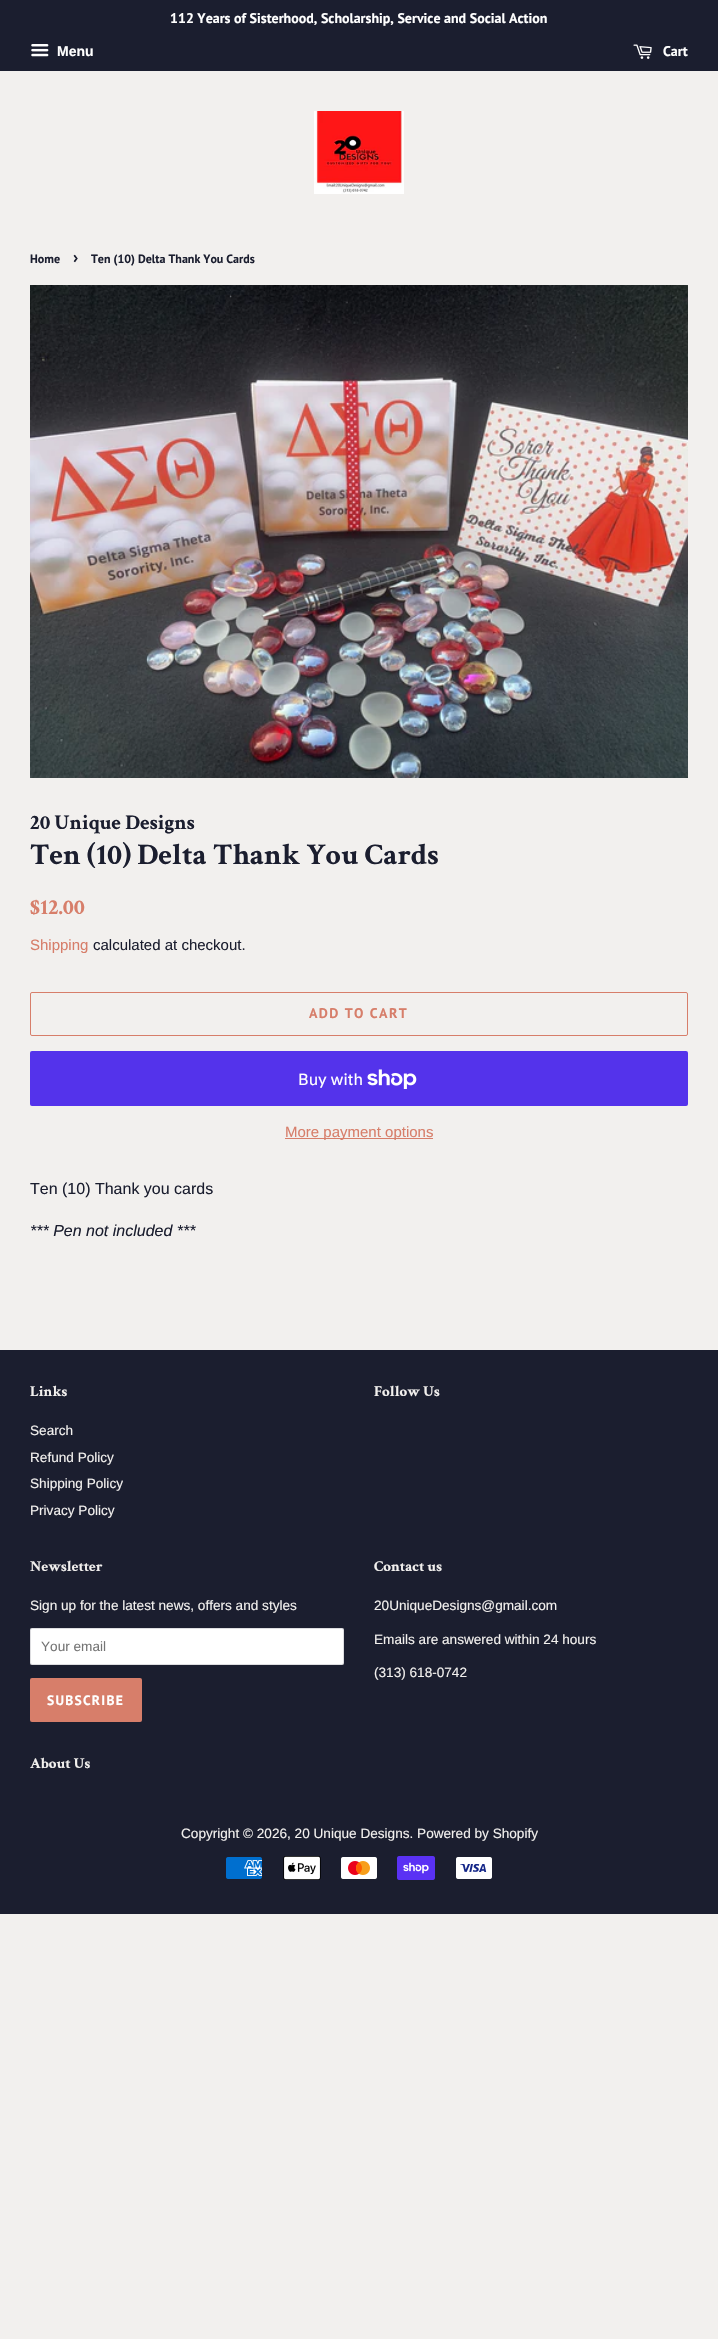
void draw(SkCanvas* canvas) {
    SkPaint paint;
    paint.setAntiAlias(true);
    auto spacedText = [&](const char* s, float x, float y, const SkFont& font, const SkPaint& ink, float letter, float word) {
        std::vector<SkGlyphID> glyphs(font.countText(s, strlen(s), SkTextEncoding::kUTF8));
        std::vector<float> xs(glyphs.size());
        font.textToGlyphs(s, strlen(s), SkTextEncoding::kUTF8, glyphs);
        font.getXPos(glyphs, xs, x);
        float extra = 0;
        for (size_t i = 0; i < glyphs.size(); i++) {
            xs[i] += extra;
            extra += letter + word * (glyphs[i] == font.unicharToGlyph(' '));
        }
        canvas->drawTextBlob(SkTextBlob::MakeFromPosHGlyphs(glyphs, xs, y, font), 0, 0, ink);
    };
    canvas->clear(0xFFF2F0EE);
    paint.setColor(0xFF1B1E2F);
    canvas->drawRect(SkRect::MakeXYWH(0, 0, 718, 71), paint);
    SkFont font1(fontMgr->matchFamilyStyle("PT Sans", SkFontStyle::Bold()), 14);
    font1.setSubpixel(true);
    paint.setColor(0xFFFFFFFF);
    canvas->drawString("112 Years of Sisterhood, Scholarship, Service and Social Action", 170, 23, font1, paint);
    canvas->drawImageRect(SkImages::DeferredFromEncodedData(SkData::MakeFromFileName("img1.png")), SkRect::MakeXYWH(31, 44, 18, 13), SkSamplingOptions());
    SkFont font2(fontMgr->matchFamilyStyle("Liberation Sans", SkFontStyle::Bold()), 14);
    font2.setSubpixel(true);
    canvas->drawString("Menu", 57, 56, font2, paint);
    canvas->drawImageRect(SkImages::DeferredFromEncodedData(SkData::MakeFromFileName("img2.png")), SkRect::MakeXYWH(633, 44, 19, 15), SkSamplingOptions());
    canvas->drawString("Cart", 663, 56, font1, paint);
    canvas->drawImageRect(SkImages::DeferredFromEncodedData(SkData::MakeFromFileName("img3.png")), SkRect::MakeXYWH(314, 111, 90, 83), SkSamplingOptions());
    SkFont font3(fontMgr->matchFamilyStyle("PT Sans", SkFontStyle::Bold()), 12);
    font3.setSubpixel(true);
    paint.setColor(0xFF1B1E2F);
    canvas->drawString("Home", 30, 263, font3, paint);
    SkFont font4(fontMgr->matchFamilyStyle("PT Sans", SkFontStyle::Bold()), 17);
    font4.setSubpixel(true);
    canvas->drawString("›", 73, 263, font4, paint);
    canvas->drawString("Ten (10) Delta Thank You Cards", 91, 263, font3, paint);
    canvas->drawImageRect(SkImages::DeferredFromEncodedData(SkData::MakeFromFileName("img4.png")), SkRect::MakeXYWH(30, 285, 658, 493), SkSamplingOptions());
    SkFont font5(fontMgr->matchFamilyStyle("Crimson Text", SkFontStyle::Bold()), 21);
    font5.setSubpixel(true);
    canvas->drawString("20 Unique Designs", 30, 829, font5, paint);
    SkFont font6(fontMgr->matchFamilyStyle("Crimson Text", SkFontStyle::Bold()), 30);
    font6.setSubpixel(true);
    canvas->drawString("Ten (10) Delta Thank You Cards", 30, 864, font6, paint);
    SkFont font7(fontMgr->matchFamilyStyle("Crimson Text", SkFontStyle::Bold()), 22);
    font7.setSubpixel(true);
    paint.setColor(0xFFD77E6A);
    canvas->drawString("$12.00", 30, 914, font7, paint);
    SkFont font8(fontMgr->matchFamilyStyle("Liberation Sans", SkFontStyle::Normal()), 15);
    font8.setSubpixel(true);
    canvas->drawString("Shipping", 30, 950, font8, paint);
    paint.setColor(0xFF1B1E2F);
    canvas->drawString("calculated at checkout.", 93, 950, font8, paint);
    paint.setStyle(SkPaint::kStroke_Style);
    paint.setStrokeWidth(1);
    paint.setColor(0xFFD77E6A);
    canvas->drawRoundRect(SkRect::MakeXYWH(30.5f, 992.5f, 657, 43), 1.5f, 1.5f, paint);
    paint.setStyle(SkPaint::kFill_Style);
    spacedText("ADD TO CART", 309, 1018, font1, paint, 1.4f, 0);
    paint.setColor(0xFF5433EB);
    canvas->drawRoundRect(SkRect::MakeXYWH(30, 1051, 658, 55), 2, 2, paint);
    SkFont font9(fontMgr->matchFamilyStyle("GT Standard", SkFontStyle::Normal()), 16);
    font9.setSubpixel(true);
    paint.setColor(0xFFFFFFFF);
    canvas->drawString("Buy with", 298, 1085, font9, paint);
    canvas->drawImageRect(SkImages::DeferredFromEncodedData(SkData::MakeFromFileName("img5.png")), SkRect::MakeXYWH(367, 1069, 50, 20), SkSamplingOptions());
    paint.setColor(0xFFD77E6A);
    canvas->drawRect(SkRect::MakeXYWH(285, 1138, 148, 1), paint);
    canvas->drawString("More payment options", 285, 1137, font8, paint);
    SkFont font10(fontMgr->matchFamilyStyle("Liberation Sans", SkFontStyle::Normal()), 16);
    font10.setSubpixel(true);
    paint.setColor(0xFF1B1E2F);
    canvas->drawString("Ten (10) Thank you cards", 30, 1194, font10, paint);
    SkFont font11(fontMgr->matchFamilyStyle("Liberation Sans", SkFontStyle::Italic()), 16);
    font11.setSubpixel(true);
    canvas->drawString("*** Pen not included ***", 30, 1236, font11, paint);
    canvas->drawRect(SkRect::MakeXYWH(0, 1350, 718, 564), paint);
    SkFont font12(fontMgr->matchFamilyStyle("Crimson Text", SkFontStyle::Bold()), 15);
    font12.setSubpixel(true);
    paint.setColor(0xFFF2F0EE);
    canvas->drawString("Links", 30, 1396, font12, paint);
    SkFont font13(fontMgr->matchFamilyStyle("Liberation Sans", SkFontStyle::Normal()), 13.6f);
    font13.setSubpixel(true);
    canvas->drawString("Search", 30, 1435, font13, paint);
    canvas->drawString("Refund Policy", 30, 1462, font13, paint);
    canvas->drawString("Shipping Policy", 30, 1488, font13, paint);
    canvas->drawString("Privacy Policy", 30, 1515, font13, paint);
    canvas->drawString("Follow Us", 374, 1396, font12, paint);
    canvas->drawString("Newsletter", 30, 1571, font12, paint);
    canvas->drawString("Sign up for the latest news, offers and styles", 30, 1610, font13, paint);
    paint.setColor(0xFFFFFFFF);
    canvas->drawRoundRect(SkRect::MakeXYWH(30, 1628, 314, 37), 2, 2, paint);
    paint.setStyle(SkPaint::kStroke_Style);
    paint.setColor(0x261B1E2F);
    canvas->drawRoundRect(SkRect::MakeXYWH(30.5f, 1628.5f, 313, 36), 1.5f, 1.5f, paint);
    paint.setStyle(SkPaint::kFill_Style);
    paint.setColor(0xFF757575);
    canvas->drawString("Your email", 41, 1651, font13, paint);
    paint.setColor(0xFFD77E6A);
    canvas->drawRoundRect(SkRect::MakeXYWH(30, 1678, 112, 44), 2, 2, paint);
    SkFont font14(fontMgr->matchFamilyStyle("PT Sans", SkFontStyle::Bold()), 13.6f);
    font14.setSubpixel(true);
    paint.setColor(0xFFFFFFFF);
    spacedText("SUBSCRIBE", 47, 1705, font14, paint, 1.25f, 0);
    paint.setColor(0xFFF2F0EE);
    canvas->drawString("Contact us", 374, 1571, font12, paint);
    canvas->drawString("20UniqueDesigns@gmail.com", 374, 1610, font13, paint);
    canvas->drawString("Emails are answered within 24 hours", 374, 1644, font13, paint);
    canvas->drawString("(313) 618-0742", 374, 1677, font13, paint);
    canvas->drawString("About Us", 30, 1768, font12, paint);
    canvas->drawString("Copyright © 2026, 20 Unique Designs. Powered by Shopify", 181, 1838, font13, paint);
    canvas->drawImageRect(SkImages::DeferredFromEncodedData(SkData::MakeFromFileName("img6.png")), SkRect::MakeXYWH(226, 1857, 36, 22), SkSamplingOptions());
    canvas->drawImageRect(SkImages::DeferredFromEncodedData(SkData::MakeFromFileName("img7.png")), SkRect::MakeXYWH(283, 1856, 38, 24), SkSamplingOptions());
    canvas->drawImageRect(SkImages::DeferredFromEncodedData(SkData::MakeFromFileName("img8.png")), SkRect::MakeXYWH(341, 1857, 36, 22), SkSamplingOptions());
    canvas->drawImageRect(SkImages::DeferredFromEncodedData(SkData::MakeFromFileName("img9.png")), SkRect::MakeXYWH(397, 1856, 38, 24), SkSamplingOptions());
    canvas->drawImageRect(SkImages::DeferredFromEncodedData(SkData::MakeFromFileName("img10.png")), SkRect::MakeXYWH(456, 1857, 36, 22), SkSamplingOptions());
}
